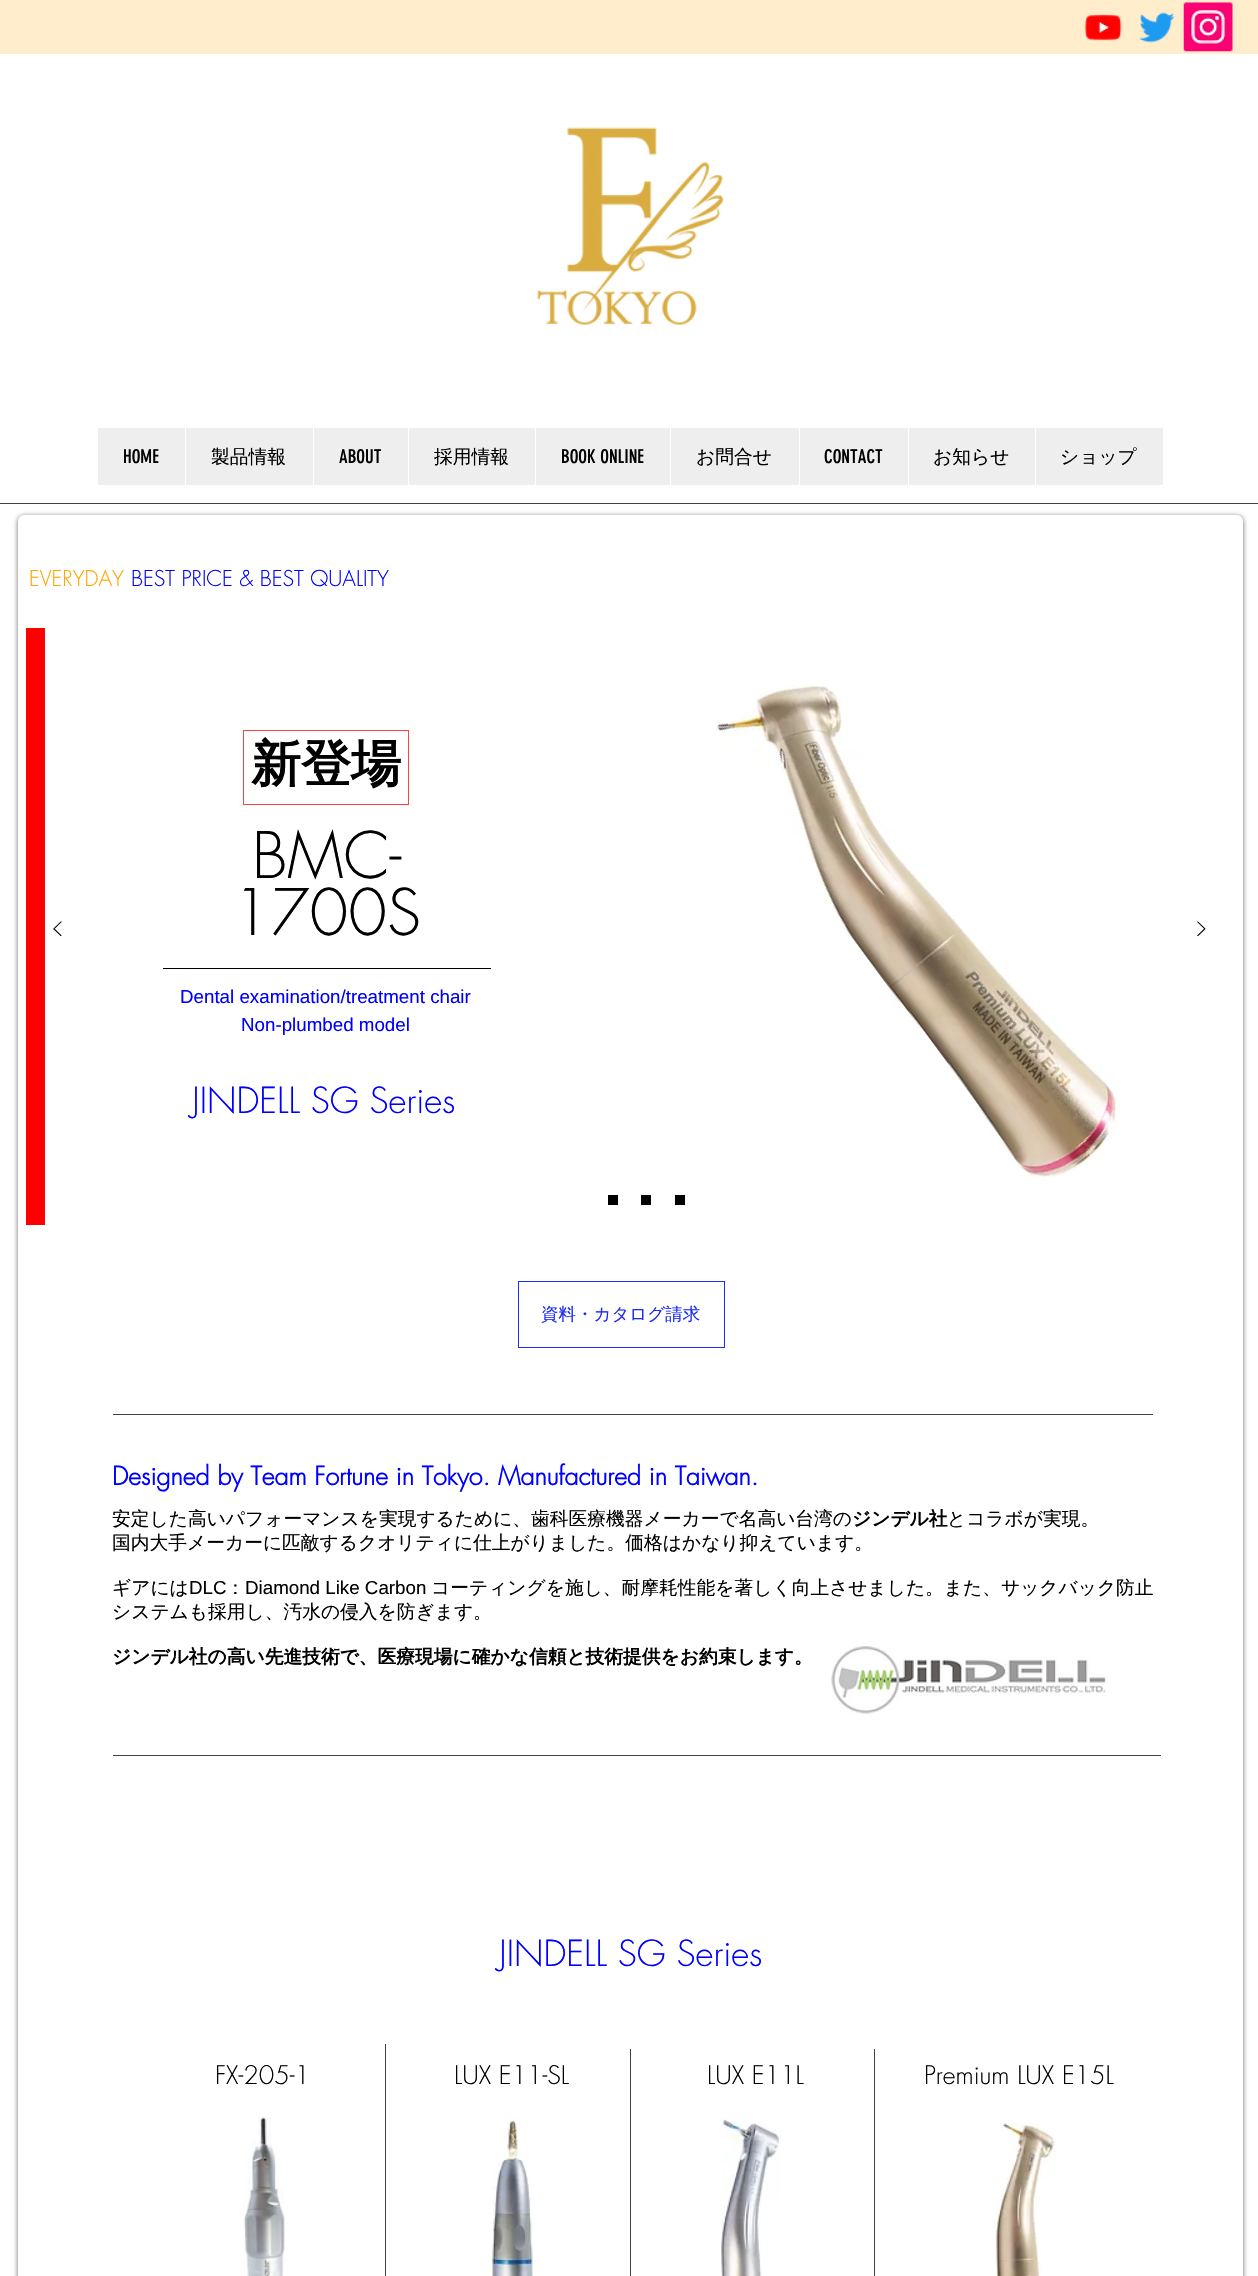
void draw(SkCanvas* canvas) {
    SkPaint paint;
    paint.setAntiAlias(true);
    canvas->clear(0xFFFFFFFF);
    paint.setColor(0xFFFFEDCC);
    canvas->drawRect(SkRect::MakeXYWH(0, 0, 1258, 54), paint);
    canvas->drawImageRect(SkImages::DeferredFromEncodedData(SkData::MakeFromFileName("img1.png")), SkRect::MakeXYWH(1084, 14, 38, 27), SkSamplingOptions());
    canvas->drawImageRect(SkImages::DeferredFromEncodedData(SkData::MakeFromFileName("img2.png")), SkRect::MakeXYWH(1139, 12, 36, 31), SkSamplingOptions());
    canvas->drawImageRect(SkImages::DeferredFromEncodedData(SkData::MakeFromFileName("img3.png")), SkRect::MakeXYWH(1183, 2, 50, 50), SkSamplingOptions());
    canvas->drawImageRect(SkImages::DeferredFromEncodedData(SkData::MakeFromFileName("img4.png")), SkRect::MakeXYWH(537, 127, 187, 199), SkSamplingOptions());
    paint.setColor(0xFFEFEEEE);
    canvas->drawRect(SkRect::MakeXYWH(98, 428, 1065, 57), paint);
    SkFont font1(fontMgr->matchFamilyStyle("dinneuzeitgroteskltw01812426", SkFontStyle::Normal()), 18.75f);
    font1.setSubpixel(true);
    paint.setColor(0xFF000000);
    canvas->drawString("HOME", 123, 463, font1, paint);
    paint.setColor(0xFFFFFFFF);
    canvas->drawRect(SkRect::MakeXYWH(185, 428, 1, 57), paint);
    SkFont font2(fontMgr->matchFamilyStyle("WenQuanYi Zen Hei", SkFontStyle(500, SkFontStyle::kNormal_Width, SkFontStyle::kUpright_Slant)), 18.75f);
    font2.setSubpixel(true);
    paint.setColor(0xFF000000);
    canvas->drawString("製品情報", 211, 463, font2, paint);
    paint.setColor(0xFFFFFFFF);
    canvas->drawRect(SkRect::MakeXYWH(313, 428, 1, 57), paint);
    paint.setColor(0xFF000000);
    canvas->drawString("ABOUT", 339, 463, font1, paint);
    paint.setColor(0xFFFFFFFF);
    canvas->drawRect(SkRect::MakeXYWH(408, 428, 1, 57), paint);
    paint.setColor(0xFF000000);
    canvas->drawString("採用情報", 434, 463, font2, paint);
    paint.setColor(0xFFFFFFFF);
    canvas->drawRect(SkRect::MakeXYWH(535, 428, 1, 57), paint);
    paint.setColor(0xFF000000);
    canvas->drawString("BOOK ONLINE", 561, 463, font1, paint);
    paint.setColor(0xFFFFFFFF);
    canvas->drawRect(SkRect::MakeXYWH(670, 428, 1, 57), paint);
    paint.setColor(0xFF000000);
    canvas->drawString("お問合せ", 696, 463, font2, paint);
    paint.setColor(0xFFFFFFFF);
    canvas->drawRect(SkRect::MakeXYWH(799, 428, 1, 57), paint);
    paint.setColor(0xFF000000);
    canvas->drawString("CONTACT", 824, 463, font1, paint);
    paint.setColor(0xFFFFFFFF);
    canvas->drawRect(SkRect::MakeXYWH(908, 428, 1, 57), paint);
    paint.setColor(0xFF000000);
    canvas->drawString("お知らせ", 933, 463, font2, paint);
    paint.setColor(0xFFFFFFFF);
    canvas->drawRect(SkRect::MakeXYWH(1035, 428, 1, 57), paint);
    paint.setColor(0xFF000000);
    canvas->drawString("ショップ", 1060, 463, font2, paint);
    paint.setColor(0xFF424242);
    canvas->drawRect(SkRect::MakeXYWH(0, 503, 1258, 1), paint);
    paint.setColor(0x99000000);
    paint.setMaskFilter(SkMaskFilter::MakeBlur(kNormal_SkBlurStyle, 2.5f));
    canvas->drawRoundRect(SkRect::MakeXYWH(18, 516, 1225, 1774), 6, 6, paint);
    paint.setMaskFilter(nullptr);
    paint.setColor(0xFFFFFFFF);
    canvas->drawRoundRect(SkRect::MakeXYWH(18, 515, 1225, 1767), 6, 6, paint);
    SkFont font3(fontMgr->matchFamilyStyle("futura", SkFontStyle(300, SkFontStyle::kNormal_Width, SkFontStyle::kUpright_Slant)), 21.25f);
    font3.setSubpixel(true);
    paint.setColor(0xFFFFA500);
    canvas->drawString("EVERYDAY", 29, 586, font3, paint);
    paint.setColor(0xFF0000FF);
    canvas->drawString("BEST PRICE & BEST QUALITY", 131, 586, font3, paint);
    canvas->drawImageRect(SkImages::DeferredFromEncodedData(SkData::MakeFromFileName("img5.png")), SkRect::MakeXYWH(53, 921, 9, 16), SkSamplingOptions());
    paint.setColor(0xFFFF0000);
    canvas->drawRect(SkRect::MakeXYWH(26, 628, 19, 597), paint);
    paint.setStyle(SkPaint::kStroke_Style);
    paint.setStrokeWidth(1);
    paint.setColor(0xFFFF4040);
    canvas->drawRect(SkRect::MakeXYWH(243.5f, 730.5f, 165, 74), paint);
    SkFont font4(fontMgr->matchFamilyStyle("WenQuanYi Zen Hei", SkFontStyle::Bold()), 50);
    font4.setSubpixel(true);
    paint.setStyle(SkPaint::kFill_Style);
    paint.setColor(0xFF000000);
    canvas->drawString("新登場", 251, 781, font4, paint);
    canvas->drawImageRect(SkImages::DeferredFromEncodedData(SkData::MakeFromFileName("img6.png")), SkRect::MakeXYWH(715, 683, 404, 498), SkSamplingOptions());
    SkFont font5(fontMgr->matchFamilyStyle("futura", SkFontStyle(300, SkFontStyle::kNormal_Width, SkFontStyle::kUpright_Slant)), 62.5f);
    font5.setSubpixel(true);
    canvas->drawString("BMC-", 252, 878, font5, paint);
    canvas->drawString("1700S", 232, 935, font5, paint);
    canvas->drawRect(SkRect::MakeXYWH(163, 968, 328, 1), paint);
    SkFont font6(fontMgr->matchFamilyStyle("Liberation Sans", SkFontStyle::Normal()), 18.75f);
    font6.setSubpixel(true);
    paint.setColor(0xFF0000FF);
    canvas->drawString("Dental examination/treatment chair", 180, 1003, font6, paint);
    canvas->drawString("Non-plumbed model", 241, 1031, font6, paint);
    SkFont font7(fontMgr->matchFamilyStyle("futura", SkFontStyle(300, SkFontStyle::kNormal_Width, SkFontStyle::kUpright_Slant)), 35);
    font7.setSubpixel(true);
    canvas->drawString("JINDELL SG Series", 192, 1113, font7, paint);
    canvas->drawImageRect(SkImages::DeferredFromEncodedData(SkData::MakeFromFileName("img7.png")), SkRect::MakeXYWH(1197, 921, 9, 16), SkSamplingOptions());
    paint.setColor(0xFF000000);
    canvas->drawRect(SkRect::MakeXYWH(608, 1195, 10, 10), paint);
    canvas->drawRect(SkRect::MakeXYWH(641, 1195, 10, 10), paint);
    canvas->drawRect(SkRect::MakeXYWH(675, 1195, 10, 10), paint);
    paint.setStyle(SkPaint::kStroke_Style);
    paint.setColor(0xFF1D2CF3);
    canvas->drawRect(SkRect::MakeXYWH(518.5f, 1281.5f, 206, 66), paint);
    SkFont font8(fontMgr->matchFamilyStyle("WenQuanYi Zen Hei", SkFontStyle(500, SkFontStyle::kNormal_Width, SkFontStyle::kUpright_Slant)), 17.5f);
    font8.setSubpixel(true);
    paint.setStyle(SkPaint::kFill_Style);
    canvas->drawString("資料・カタログ請求", 541, 1320, font8, paint);
    paint.setColor(0xFF424242);
    canvas->drawRect(SkRect::MakeXYWH(113, 1414, 1040, 1), paint);
    SkFont font9(fontMgr->matchFamilyStyle("futura", SkFontStyle::Bold()), 25);
    font9.setSubpixel(true);
    paint.setColor(0xFF0000FF);
    canvas->drawString("Designed by Team Fortune in Tokyo. Manufactured in Taiwan.", 112, 1485, font9, paint);
    paint.setColor(0xFF000000);
    canvas->drawString("安定した高いパフォーマンスを実現するために、歯科医療機器メーカーで名高い台湾の", 112, 1525, font2, paint);
    SkFont font10(fontMgr->matchFamilyStyle("WenQuanYi Zen Hei", SkFontStyle::Bold()), 18.75f);
    font10.setSubpixel(true);
    canvas->drawString("ジンデル社", 852, 1525, font10, paint);
    canvas->drawString("とコラボが実現。", 947, 1525, font2, paint);
    canvas->drawString("国内大手メーカーに匹敵するクオリティに仕上がりました。価格はかなり抑えています。", 112, 1549, font2, paint);
    canvas->drawString("ギアには", 112, 1594, font2, paint);
    canvas->drawString("DLC", 189, 1594, font6, paint);
    canvas->drawString("：", 226, 1594, font2, paint);
    canvas->drawString("Diamond Like Carbon", 245, 1594, font6, paint);
    canvas->drawString("コーティングを施し、耐摩耗性能を著しく向上させました。また、サックバック防止", 431, 1594, font2, paint);
    canvas->drawString("システムも採用し、汚水の侵入を防ぎます。", 112, 1618, font2, paint);
    canvas->drawString("ジンデル社の高い先進技術で、医療現場に確かな信頼と技術提供をお約束します。", 112, 1663, font10, paint);
    canvas->drawImageRect(SkImages::DeferredFromEncodedData(SkData::MakeFromFileName("img8.png")), SkRect::MakeXYWH(831, 1646, 275, 68), SkSamplingOptions());
    paint.setColor(0xFF424242);
    canvas->drawRect(SkRect::MakeXYWH(113, 1755, 1048, 1), paint);
    paint.setColor(0xFF0000FF);
    canvas->drawString("JINDELL SG Series", 499, 1966, font7, paint);
    SkFont font11(fontMgr->matchFamilyStyle("futura", SkFontStyle(300, SkFontStyle::kNormal_Width, SkFontStyle::kUpright_Slant)), 25);
    font11.setSubpixel(true);
    paint.setColor(0xFF000000);
    canvas->drawString("FX-205-1", 215, 2084, font11, paint);
    paint.setColor(0xFF424242);
    canvas->drawRect(SkRect::MakeXYWH(385, 2044, 1, 232), paint);
    paint.setColor(0xFF000000);
    canvas->drawString("LUX E11-SL", 454, 2084, font11, paint);
    paint.setColor(0xFF424242);
    canvas->drawRect(SkRect::MakeXYWH(630, 2049, 1, 227), paint);
    paint.setColor(0xFF000000);
    canvas->drawString("LUX E11L", 707, 2084, font11, paint);
    paint.setColor(0xFF424242);
    canvas->drawRect(SkRect::MakeXYWH(874, 2049, 1, 227), paint);
    paint.setColor(0xFF000000);
    canvas->drawString("Premium LUX E15L", 924, 2084, font11, paint);
    canvas->drawImageRect(SkImages::DeferredFromEncodedData(SkData::MakeFromFileName("img9.png")), SkRect::MakeXYWH(243, 2117, 42, 159), SkSamplingOptions());
    canvas->drawImageRect(SkImages::DeferredFromEncodedData(SkData::MakeFromFileName("img10.png")), SkRect::MakeXYWH(492, 2119, 45, 157), SkSamplingOptions());
    canvas->drawImageRect(SkImages::DeferredFromEncodedData(SkData::MakeFromFileName("img11.png")), SkRect::MakeXYWH(721, 2119, 60, 157), SkSamplingOptions());
    canvas->drawImageRect(SkImages::DeferredFromEncodedData(SkData::MakeFromFileName("img12.png")), SkRect::MakeXYWH(995, 2123, 61, 153), SkSamplingOptions());
}
